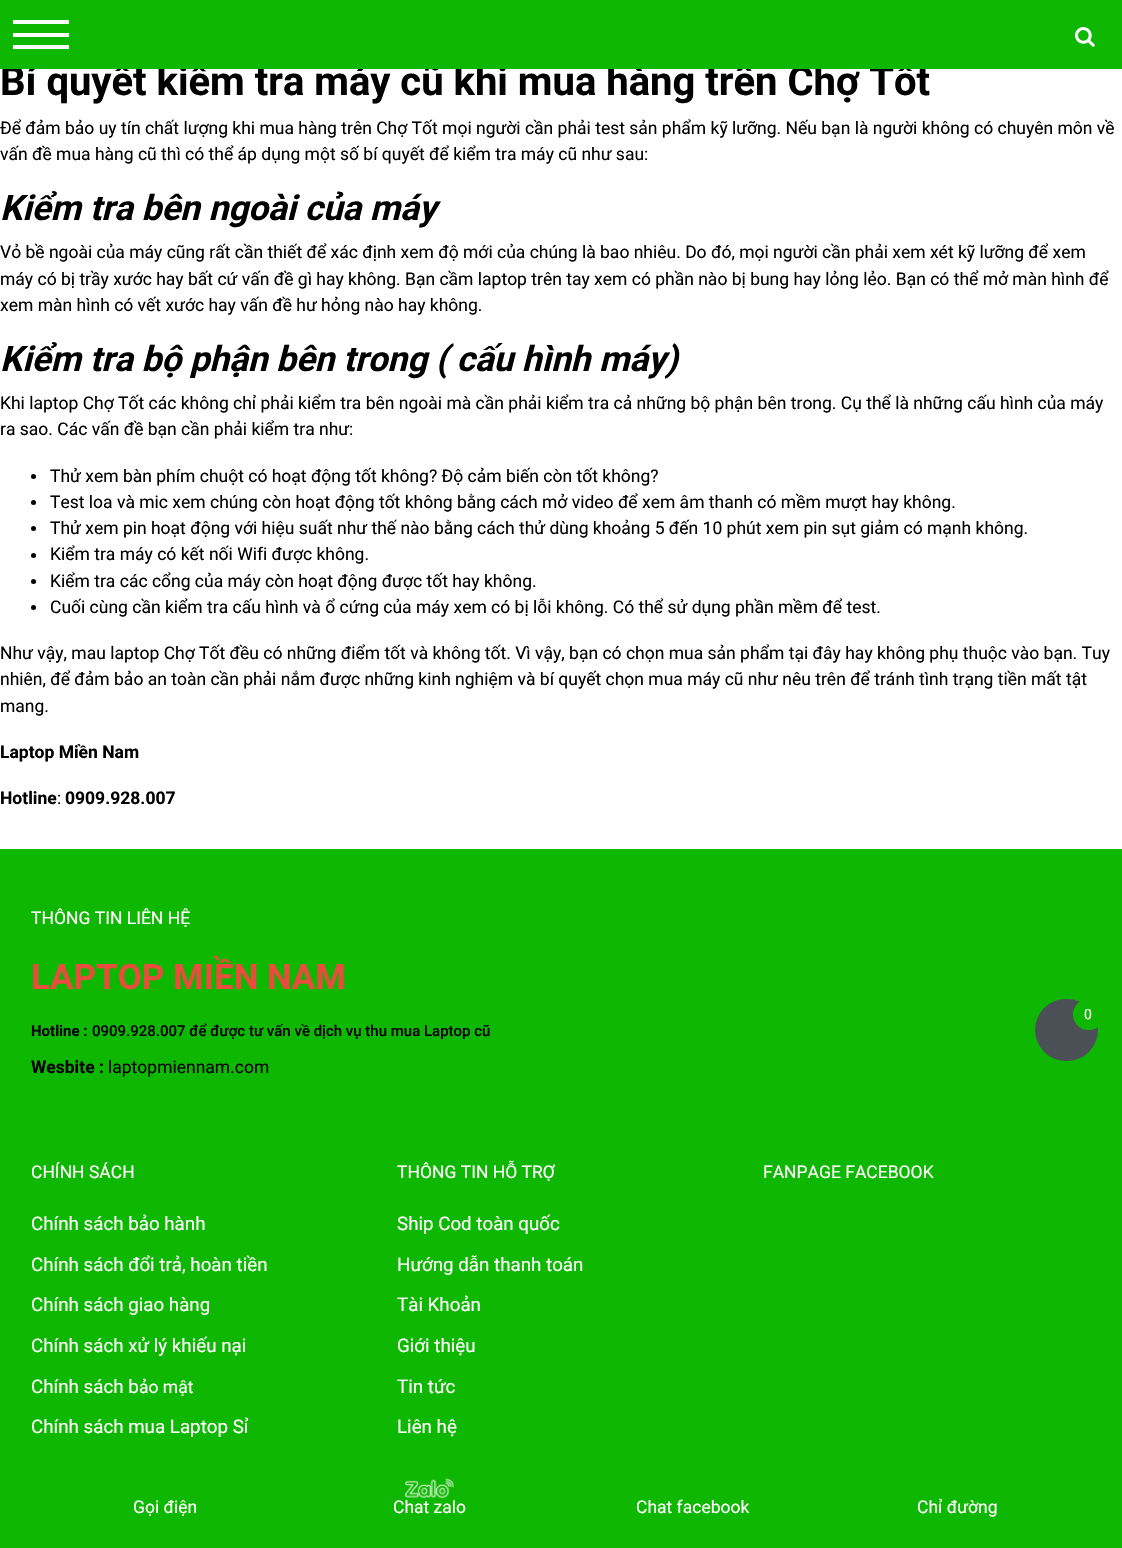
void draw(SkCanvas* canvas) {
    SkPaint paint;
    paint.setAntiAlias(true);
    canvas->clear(0xFFFFFFFF);
    SkFont font1(fontMgr->matchFamilyStyle("Roboto", SkFontStyle::Bold()), 40);
    font1.setSubpixel(true);
    paint.setColor(0xFF000000);
    canvas->drawString("Bí quyết kiểm tra máy cũ khi mua hàng trên Chợ Tốt", 0, 95, font1, paint);
    paint.setColor(0xFF0EB701);
    canvas->drawRect(SkRect::MakeXYWH(0, 0, 1122, 69), paint);
    paint.setColor(0xFFFFFFFF);
    canvas->drawRect(SkRect::MakeXYWH(13, 20, 56, 4), paint);
    canvas->drawRect(SkRect::MakeXYWH(13, 33, 56, 4), paint);
    canvas->drawRect(SkRect::MakeXYWH(13, 45, 56, 4), paint);
    canvas->drawImageRect(SkImages::DeferredFromEncodedData(SkData::MakeFromFileName("img1.png")), SkRect::MakeXYWH(1075, 27, 20, 20), SkSamplingOptions());
    SkFont font2(fontMgr->matchFamilyStyle("Roboto", SkFontStyle::Normal()), 17.5f);
    font2.setSubpixel(true);
    paint.setColor(0xFF000000);
    canvas->drawString("Để đảm bảo uy tín chất lượng khi mua hàng trên Chợ Tốt mọi người cần phải test sản phẩm kỹ lưỡng. Nếu bạn là người không có chuyên môn về", 0, 134, font2, paint);
    canvas->drawString("vấn đề mua hàng cũ thì có thể áp dụng một số bí quyết để kiểm tra máy cũ như sau:", 0, 160, font2, paint);
    SkFont font3(fontMgr->matchFamilyStyle("Roboto", SkFontStyle::BoldItalic()), 35);
    font3.setSubpixel(true);
    canvas->drawString("Kiểm tra bên ngoài của máy", 0, 220, font3, paint);
    canvas->drawString("Vỏ bề ngoài của máy cũng rất cần thiết để xác định xem độ mới của chúng là bao nhiêu. Do đó, mọi người cần phải xem xét kỹ lưỡng để xem", 0, 258, font2, paint);
    canvas->drawString("máy có bị trầy xước hay bất cứ vấn đề gì hay không. Bạn cầm laptop trên tay xem có phần nào bị bung hay lỏng lẻo. Bạn có thể mở màn hình để", 0, 285, font2, paint);
    canvas->drawString("xem màn hình có vết xước hay vấn đề hư hỏng nào hay không.", 0, 311, font2, paint);
    canvas->drawString("Kiểm tra bộ phận bên trong ( cấu hình máy)", 0, 371, font3, paint);
    canvas->drawString("Khi laptop Chợ Tốt các không chỉ phải kiểm tra bên ngoài mà cần phải kiểm tra cả những bộ phận bên trong. Cụ thể là những cấu hình của máy", 0, 409, font2, paint);
    canvas->drawString("ra sao. Các vấn đề bạn cần phải kiểm tra như:", 0, 435, font2, paint);
    canvas->drawCircle(33.5f, 476.5f, 2.5f, paint);
    canvas->drawString("Thử xem bàn phím chuột có hoạt động tốt không? Độ cảm biến còn tốt không?", 50, 482, font2, paint);
    canvas->drawCircle(33.5f, 502.5f, 2.5f, paint);
    canvas->drawString("Test loa và mic xem chúng còn hoạt động tốt không bằng cách mở video để xem âm thanh có mềm mượt hay không.", 50, 508, font2, paint);
    canvas->drawCircle(33.5f, 528.5f, 2.5f, paint);
    canvas->drawString("Thử xem pin hoạt động với hiệu suất như thế nào bằng cách thử dùng khoảng 5 đến 10 phút xem pin sụt giảm có mạnh không.", 50, 534, font2, paint);
    canvas->drawCircle(33.5f, 555.5f, 2.5f, paint);
    canvas->drawString("Kiểm tra máy có kết nối Wifi được không.", 50, 560, font2, paint);
    canvas->drawCircle(33.5f, 581.5f, 2.5f, paint);
    canvas->drawString("Kiểm tra các cổng của máy còn hoạt động được tốt hay không.", 50, 587, font2, paint);
    canvas->drawCircle(33.5f, 607.5f, 2.5f, paint);
    canvas->drawString("Cuối cùng cần kiểm tra cấu hình và ổ cứng của máy xem có bị lỗi không. Có thể sử dụng phần mềm để test.", 50, 613, font2, paint);
    canvas->drawString("Như vậy, mau laptop Chợ Tốt đều có những điểm tốt và không tốt. Vì vậy, bạn có chọn mua sản phẩm tại đây hay không phụ thuộc vào bạn. Tuy", 0, 659, font2, paint);
    canvas->drawString("nhiên, để đảm bảo an toàn cần phải nắm được những kinh nghiệm và bí quyết chọn mua máy cũ như nêu trên để tránh tình trạng tiền mất tật", 0, 685, font2, paint);
    canvas->drawString("mang.", 0, 712, font2, paint);
    SkFont font4(fontMgr->matchFamilyStyle("Roboto", SkFontStyle::Bold()), 17.5f);
    font4.setSubpixel(true);
    canvas->drawString("Laptop Miền Nam", 0, 758, font4, paint);
    canvas->drawString("Hotline", 0, 804, font4, paint);
    canvas->drawString(":", 57, 804, font2, paint);
    canvas->drawString("0909.928.007", 65, 804, font4, paint);
    paint.setColor(0xFF0EB701);
    canvas->drawRect(SkRect::MakeXYWH(0, 849, 1122, 699), paint);
    paint.setColor(0xFFFFFFFF);
    canvas->drawString("THÔNG TIN LIÊN HỆ", 31, 924, font2, paint);
    SkFont font5(fontMgr->matchFamilyStyle("Roboto", SkFontStyle::Bold()), 35);
    font5.setSubpixel(true);
    paint.setColor(0xFFE74C3C);
    canvas->drawString("LAPTOP MIỀN NAM", 31, 989, font5, paint);
    SkFont font6(fontMgr->matchFamilyStyle("Roboto", SkFontStyle::Bold()), 15);
    font6.setSubpixel(true);
    paint.setColor(0xFF000000);
    canvas->drawString("Hotline :", 31, 1036, font6, paint);
    SkFont font7(fontMgr->matchFamilyStyle("Roboto", SkFontStyle(500, SkFontStyle::kNormal_Width, SkFontStyle::kUpright_Slant)), 15);
    font7.setSubpixel(true);
    canvas->drawString("0909.928.007 để được tư vấn về dịch vụ thu mua Laptop cũ", 92, 1036, font7, paint);
    canvas->drawString("Wesbite :", 31, 1073, font4, paint);
    canvas->drawString("laptopmiennam.com", 108, 1073, font2, paint);
    paint.setColor(0xFFFFFFFF);
    canvas->drawString("CHÍNH SÁCH", 31, 1178, font2, paint);
    SkFont font8(fontMgr->matchFamilyStyle("Roboto", SkFontStyle::Normal()), 18.75f);
    font8.setSubpixel(true);
    canvas->drawString("Chính sách bảo hành", 31, 1230, font8, paint);
    canvas->drawString("Chính sách đổi trả, hoàn tiền", 31, 1271, font8, paint);
    canvas->drawString("Chính sách giao hàng", 31, 1311, font8, paint);
    canvas->drawString("Chính sách xử lý khiếu nại", 31, 1352, font8, paint);
    canvas->drawString("Chính sách b", 31, 1393, font8, paint);
    canvas->drawString("ảo mật", 139, 1393, font2, paint);
    canvas->drawString("Chính sách mua Laptop Sỉ", 31, 1433, font8, paint);
    canvas->drawString("THÔNG TIN HỖ TRỢ", 397, 1178, font2, paint);
    canvas->drawString("Ship Cod toàn quốc", 397, 1230, font8, paint);
    canvas->drawString("Hướng dẫn thanh toán", 397, 1271, font8, paint);
    canvas->drawString("Tài Khoản", 397, 1311, font8, paint);
    canvas->drawString("Giới thiệu", 397, 1352, font8, paint);
    canvas->drawString("Tin tức", 397, 1393, font8, paint);
    canvas->drawString("Liên hệ", 397, 1433, font8, paint);
    canvas->drawString("FANPAGE FACEBOOK", 763, 1178, font2, paint);
    canvas->drawString("Gọi điện", 133, 1513, font2, paint);
    canvas->drawImageRect(SkImages::DeferredFromEncodedData(SkData::MakeFromFileName("img2.png")), SkRect::MakeXYWH(405, 1478, 49, 20), SkSamplingOptions());
    canvas->drawString("Chat zalo", 393, 1513, font2, paint);
    canvas->drawString("Chat facebook", 636, 1513, font2, paint);
    canvas->drawString("Chỉ đường", 917, 1513, font2, paint);
    paint.setColor(0xFF4B4F56);
    canvas->drawRoundRect(SkRect::MakeXYWH(1035, 999, 63, 62), 31, 31, paint);
    paint.setColor(0xFF0EB701);
    canvas->drawCircle(1088.5f, 1014.5f, 15.5f, paint);
    SkFont font9(fontMgr->matchFamilyStyle("Roboto", SkFontStyle::Normal()), 14);
    font9.setSubpixel(true);
    paint.setColor(0xFFFFFFFF);
    canvas->drawString("0", 1084, 1019, font9, paint);
}
